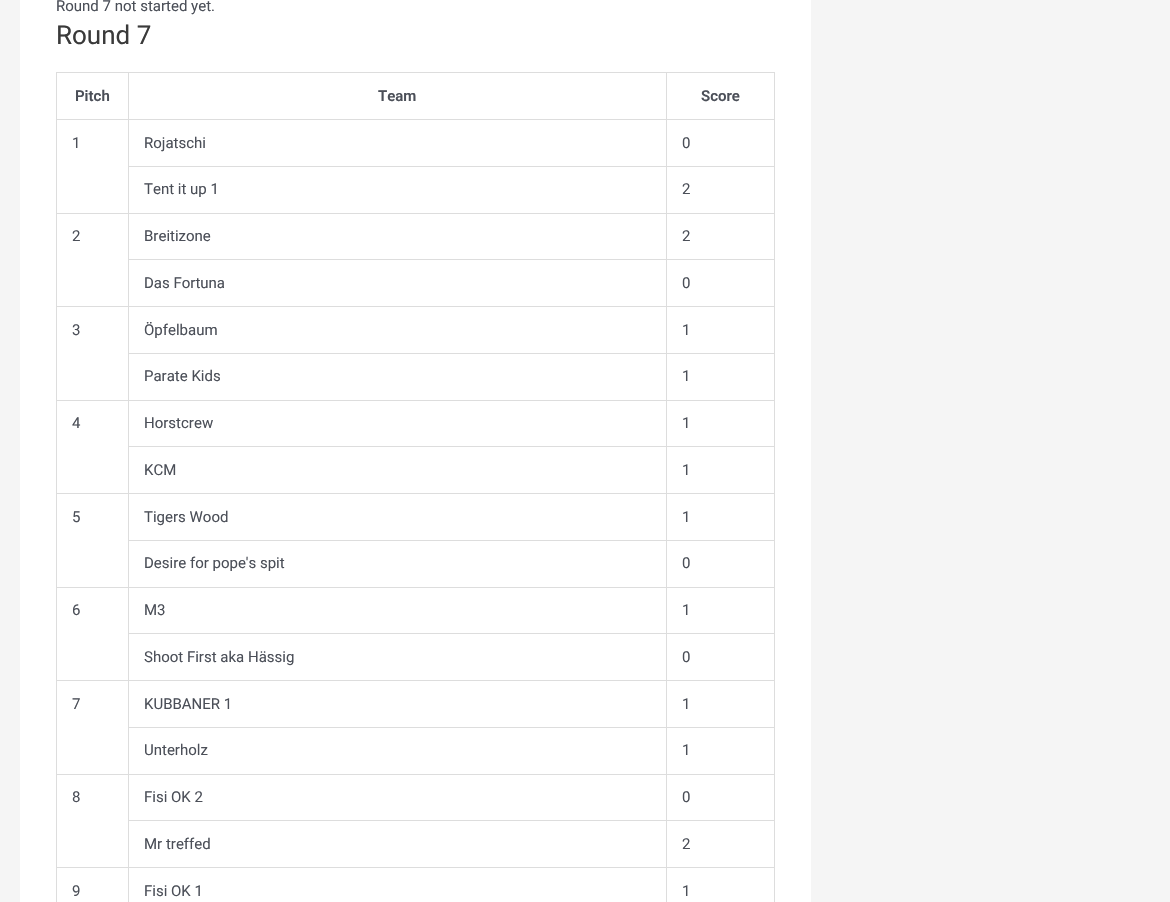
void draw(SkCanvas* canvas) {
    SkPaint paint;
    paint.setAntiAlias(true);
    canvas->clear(0xFFF5F5F5);
    paint.setColor(0xFFFFFFFF);
    canvas->drawRect(SkRect::MakeXYWH(20, 0, 791, 902), paint);
    SkFont font1(fontMgr->matchFamilyStyle("Roboto", SkFontStyle::Normal()), 15);
    font1.setSubpixel(true);
    paint.setColor(0xFF4B4F58);
    canvas->drawString("Round 7 not started yet.", 56, 11, font1, paint);
    SkFont font2(fontMgr->matchFamilyStyle("Roboto", SkFontStyle::Normal()), 26);
    font2.setSubpixel(true);
    paint.setColor(0xFF3A3A3A);
    canvas->drawString("Round 7", 56, 44, font2, paint);
    paint.setColor(0xFFDDDDDD);
    canvas->drawRect(SkRect::MakeXYWH(56, 72, 719, 1), paint);
    canvas->drawRect(SkRect::MakeXYWH(56, 72, 1, 830), paint);
    canvas->drawRect(SkRect::MakeXYWH(128, 73, 1, 829), paint);
    canvas->drawRect(SkRect::MakeXYWH(57, 119, 72, 1), paint);
    SkFont font3(fontMgr->matchFamilyStyle("Roboto", SkFontStyle(600, SkFontStyle::kNormal_Width, SkFontStyle::kUpright_Slant)), 15);
    font3.setSubpixel(true);
    paint.setColor(0xFF4B4F58);
    canvas->drawString("Pitch", 75, 101, font3, paint);
    paint.setColor(0xFFDDDDDD);
    canvas->drawRect(SkRect::MakeXYWH(666, 73, 1, 829), paint);
    canvas->drawRect(SkRect::MakeXYWH(129, 119, 538, 1), paint);
    paint.setColor(0xFF4B4F58);
    canvas->drawString("Team", 378, 101, font3, paint);
    paint.setColor(0xFFDDDDDD);
    canvas->drawRect(SkRect::MakeXYWH(774, 73, 1, 829), paint);
    canvas->drawRect(SkRect::MakeXYWH(667, 119, 108, 1), paint);
    paint.setColor(0xFF4B4F58);
    canvas->drawString("Score", 701, 101, font3, paint);
    paint.setColor(0xFFDDDDDD);
    canvas->drawRect(SkRect::MakeXYWH(57, 213, 718, 1), paint);
    paint.setColor(0xFF4B4F58);
    canvas->drawString("1", 72, 148, font1, paint);
    paint.setColor(0xFFDDDDDD);
    canvas->drawRect(SkRect::MakeXYWH(129, 166, 646, 1), paint);
    paint.setColor(0xFF4B4F58);
    canvas->drawString("Rojatschi", 144, 148, font1, paint);
    canvas->drawString("0", 682, 148, font1, paint);
    canvas->drawString("Tent it up 1", 144, 194, font1, paint);
    canvas->drawString("2", 682, 194, font1, paint);
    paint.setColor(0xFFDDDDDD);
    canvas->drawRect(SkRect::MakeXYWH(57, 306, 718, 1), paint);
    paint.setColor(0xFF4B4F58);
    canvas->drawString("2", 72, 241, font1, paint);
    paint.setColor(0xFFDDDDDD);
    canvas->drawRect(SkRect::MakeXYWH(129, 259, 646, 1), paint);
    paint.setColor(0xFF4B4F58);
    canvas->drawString("Breitizone", 144, 241, font1, paint);
    canvas->drawString("2", 682, 241, font1, paint);
    canvas->drawString("Das Fortuna", 144, 288, font1, paint);
    canvas->drawString("0", 682, 288, font1, paint);
    paint.setColor(0xFFDDDDDD);
    canvas->drawRect(SkRect::MakeXYWH(57, 400, 718, 1), paint);
    paint.setColor(0xFF4B4F58);
    canvas->drawString("3", 72, 335, font1, paint);
    paint.setColor(0xFFDDDDDD);
    canvas->drawRect(SkRect::MakeXYWH(129, 353, 646, 1), paint);
    paint.setColor(0xFF4B4F58);
    canvas->drawString("Öpfelbaum", 144, 335, font1, paint);
    canvas->drawString("1", 682, 335, font1, paint);
    canvas->drawString("Parate Kids", 144, 381, font1, paint);
    canvas->drawString("1", 682, 381, font1, paint);
    paint.setColor(0xFFDDDDDD);
    canvas->drawRect(SkRect::MakeXYWH(57, 493, 718, 1), paint);
    paint.setColor(0xFF4B4F58);
    canvas->drawString("4", 72, 428, font1, paint);
    paint.setColor(0xFFDDDDDD);
    canvas->drawRect(SkRect::MakeXYWH(129, 446, 646, 1), paint);
    paint.setColor(0xFF4B4F58);
    canvas->drawString("Horstcrew", 144, 428, font1, paint);
    canvas->drawString("1", 682, 428, font1, paint);
    canvas->drawString("KCM", 144, 475, font1, paint);
    canvas->drawString("1", 682, 475, font1, paint);
    paint.setColor(0xFFDDDDDD);
    canvas->drawRect(SkRect::MakeXYWH(57, 587, 718, 1), paint);
    paint.setColor(0xFF4B4F58);
    canvas->drawString("5", 72, 522, font1, paint);
    paint.setColor(0xFFDDDDDD);
    canvas->drawRect(SkRect::MakeXYWH(129, 540, 646, 1), paint);
    paint.setColor(0xFF4B4F58);
    canvas->drawString("Tigers Wood", 144, 522, font1, paint);
    canvas->drawString("1", 682, 522, font1, paint);
    canvas->drawString("Desire for pope's spit", 144, 568, font1, paint);
    canvas->drawString("0", 682, 568, font1, paint);
    paint.setColor(0xFFDDDDDD);
    canvas->drawRect(SkRect::MakeXYWH(57, 680, 718, 1), paint);
    paint.setColor(0xFF4B4F58);
    canvas->drawString("6", 72, 615, font1, paint);
    paint.setColor(0xFFDDDDDD);
    canvas->drawRect(SkRect::MakeXYWH(129, 633, 646, 1), paint);
    paint.setColor(0xFF4B4F58);
    canvas->drawString("M3", 144, 615, font1, paint);
    canvas->drawString("1", 682, 615, font1, paint);
    canvas->drawString("Shoot First aka Hässig", 144, 662, font1, paint);
    canvas->drawString("0", 682, 662, font1, paint);
    paint.setColor(0xFFDDDDDD);
    canvas->drawRect(SkRect::MakeXYWH(57, 774, 718, 1), paint);
    paint.setColor(0xFF4B4F58);
    canvas->drawString("7", 72, 709, font1, paint);
    paint.setColor(0xFFDDDDDD);
    canvas->drawRect(SkRect::MakeXYWH(129, 727, 646, 1), paint);
    paint.setColor(0xFF4B4F58);
    canvas->drawString("KUBBANER 1", 144, 709, font1, paint);
    canvas->drawString("1", 682, 709, font1, paint);
    canvas->drawString("Unterholz", 144, 755, font1, paint);
    canvas->drawString("1", 682, 755, font1, paint);
    paint.setColor(0xFFDDDDDD);
    canvas->drawRect(SkRect::MakeXYWH(57, 867, 718, 1), paint);
    paint.setColor(0xFF4B4F58);
    canvas->drawString("8", 72, 802, font1, paint);
    paint.setColor(0xFFDDDDDD);
    canvas->drawRect(SkRect::MakeXYWH(129, 820, 646, 1), paint);
    paint.setColor(0xFF4B4F58);
    canvas->drawString("Fisi OK 2", 144, 802, font1, paint);
    canvas->drawString("0", 682, 802, font1, paint);
    canvas->drawString("Mr treffed", 144, 849, font1, paint);
    canvas->drawString("2", 682, 849, font1, paint);
    canvas->drawString("9", 72, 896, font1, paint);
    canvas->drawString("Fisi OK 1", 144, 896, font1, paint);
    canvas->drawString("1", 682, 896, font1, paint);
}
